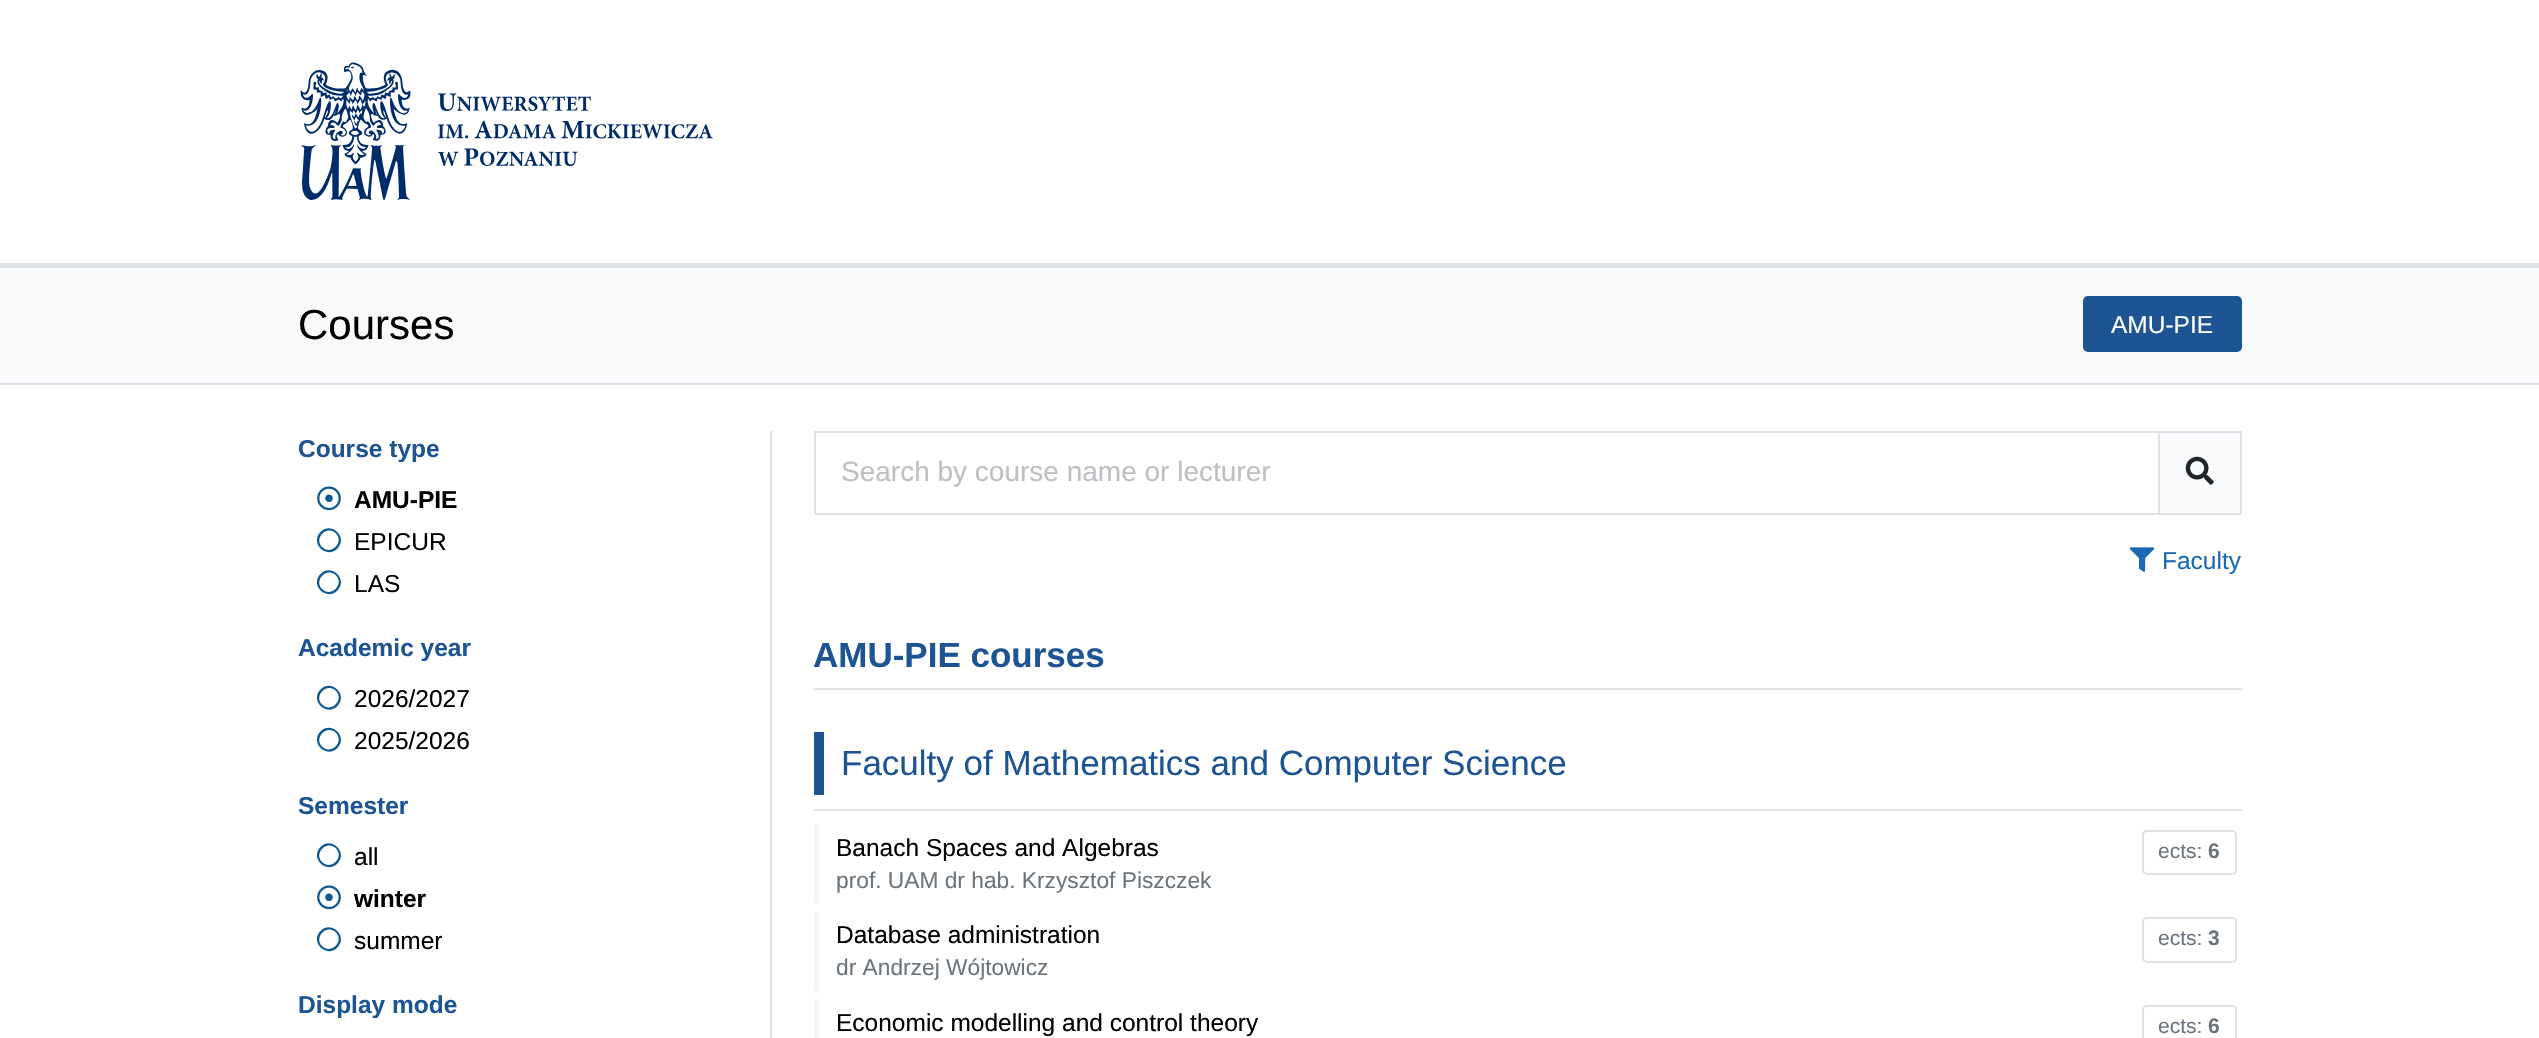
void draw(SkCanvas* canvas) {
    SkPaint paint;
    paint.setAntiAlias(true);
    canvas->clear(0xFFFFFFFF);
    canvas->drawImageRect(SkImages::DeferredFromEncodedData(SkData::MakeFromFileName("img1.png")), SkRect::MakeXYWH(300, 62, 413, 138), SkSamplingOptions());
    paint.setColor(0xFFF8F9FA);
    canvas->drawRect(SkRect::MakeXYWH(0, 268, 2539, 115), paint);
    paint.setColor(0xFFDEE2E6);
    canvas->drawRect(SkRect::MakeXYWH(0, 263, 2539, 5), paint);
    canvas->drawRect(SkRect::MakeXYWH(0, 383, 2539, 2), paint);
    SkFont font1(fontMgr->matchFamilyStyle("Liberation Sans", SkFontStyle::Normal()), 42);
    font1.setSubpixel(true);
    paint.setColor(0xFF000000);
    canvas->drawString("Courses", 298, 339, font1, paint);
    paint.setColor(0xFF1C5494);
    canvas->drawRoundRect(SkRect::MakeXYWH(2083, 296, 159, 56), 5, 5, paint);
    SkFont font2(fontMgr->matchFamilyStyle("Liberation Sans", SkFontStyle::Normal()), 24.5f);
    font2.setSubpixel(true);
    paint.setColor(0xFFFFFFFF);
    canvas->drawString("AMU-PIE", 2111, 333, font2, paint);
    paint.setColor(0xFFDEE2E6);
    canvas->drawRect(SkRect::MakeXYWH(770, 431, 2, 607), paint);
    SkFont font3(fontMgr->matchFamilyStyle("Liberation Sans", SkFontStyle::Bold()), 24.5f);
    font3.setSubpixel(true);
    paint.setColor(0xFF1C5494);
    canvas->drawString("Course type", 298, 457, font3, paint);
    canvas->drawImageRect(SkImages::DeferredFromEncodedData(SkData::MakeFromFileName("img2.png")), SkRect::MakeXYWH(317, 486, 24, 25), SkSamplingOptions());
    paint.setColor(0xFF000000);
    canvas->drawString("AMU-PIE", 354, 508, font3, paint);
    paint.setColor(0xFF0F5A91);
    canvas->drawPath(SkPathBuilder().moveTo(320.5f, 532).cubicTo(331.5f, 521, 348.5f, 537.5f, 337.5f, 548.5f).cubicTo(326.5f, 559.5f, 309.5f, 543, 320.5f, 532).close().moveTo(322, 547).cubicTo(331, 556, 344.5f, 542.5f, 336, 533.5f).cubicTo(327, 524.5f, 313.5f, 538, 322, 547).close().detach(), paint);
    paint.setColor(0xFF000000);
    canvas->drawString("EPICUR", 354, 550, font2, paint);
    paint.setColor(0xFF0F5A91);
    canvas->drawPath(SkPathBuilder().moveTo(320.5f, 574).cubicTo(331.5f, 563, 348.5f, 579.5f, 337.5f, 590.5f).cubicTo(326.5f, 601.5f, 309.5f, 585, 320.5f, 574).close().moveTo(322, 589).cubicTo(331, 598, 344.5f, 584.5f, 336, 575.5f).cubicTo(327, 566.5f, 313.5f, 580, 322, 589).close().detach(), paint);
    paint.setColor(0xFF000000);
    canvas->drawString("LAS", 354, 592, font2, paint);
    paint.setColor(0xFF1C5494);
    canvas->drawString("Academic year", 298, 656, font3, paint);
    paint.setColor(0xFF0F5A91);
    canvas->drawPath(SkPathBuilder().moveTo(320.5f, 689.5f).cubicTo(331.5f, 678.5f, 348.5f, 695, 337.5f, 706).cubicTo(326.5f, 717, 309.5f, 700.5f, 320.5f, 689.5f).close().moveTo(322, 704.5f).cubicTo(331, 713.5f, 344.5f, 700, 336, 691).cubicTo(327, 682, 313.5f, 695.5f, 322, 704.5f).close().detach(), paint);
    paint.setColor(0xFF000000);
    canvas->drawString("2026/2027", 354, 707, font2, paint);
    paint.setColor(0xFF0F5A91);
    canvas->drawPath(SkPathBuilder().moveTo(320.5f, 731.5f).cubicTo(331.5f, 720.5f, 348.5f, 737, 337.5f, 748).cubicTo(326.5f, 759, 309.5f, 742.5f, 320.5f, 731.5f).close().moveTo(322, 746.5f).cubicTo(331, 755.5f, 344.5f, 742, 336, 733).cubicTo(327, 724, 313.5f, 737.5f, 322, 746.5f).close().detach(), paint);
    paint.setColor(0xFF000000);
    canvas->drawString("2025/2026", 354, 749, font2, paint);
    paint.setColor(0xFF1C5494);
    canvas->drawString("Semester", 298, 814, font3, paint);
    paint.setColor(0xFF0F5A91);
    canvas->drawPath(SkPathBuilder().moveTo(320.5f, 847).cubicTo(331.5f, 836, 348.5f, 852.5f, 337.5f, 863.5f).cubicTo(326.5f, 874.5f, 309.5f, 858, 320.5f, 847).close().moveTo(322, 862).cubicTo(331, 871, 344.5f, 857.5f, 336, 848.5f).cubicTo(327, 839.5f, 313.5f, 853, 322, 862).close().detach(), paint);
    paint.setColor(0xFF000000);
    canvas->drawString("all", 354, 865, font2, paint);
    canvas->drawImageRect(SkImages::DeferredFromEncodedData(SkData::MakeFromFileName("img2.png")), SkRect::MakeXYWH(317, 885, 24, 25), SkSamplingOptions());
    canvas->drawString("winter", 354, 907, font3, paint);
    paint.setColor(0xFF0F5A91);
    canvas->drawPath(SkPathBuilder().moveTo(320.5f, 931).cubicTo(331.5f, 920, 348.5f, 936.5f, 337.5f, 947.5f).cubicTo(326.5f, 958.5f, 309.5f, 942, 320.5f, 931).close().moveTo(322, 946).cubicTo(331, 955, 344.5f, 941.5f, 336, 932.5f).cubicTo(327, 923.5f, 313.5f, 937, 322, 946).close().detach(), paint);
    paint.setColor(0xFF000000);
    canvas->drawString("summer", 354, 949, font2, paint);
    paint.setColor(0xFF1C5494);
    canvas->drawString("Display mode", 298, 1013, font3, paint);
    paint.setStyle(SkPaint::kStroke_Style);
    paint.setStrokeWidth(2);
    paint.setColor(0xFFDEE2E6);
    canvas->drawRect(SkRect::MakeXYWH(815, 432, 1344, 82), paint);
    SkFont font4(fontMgr->matchFamilyStyle("Liberation Sans", SkFontStyle::Normal()), 28);
    font4.setSubpixel(true);
    paint.setStyle(SkPaint::kFill_Style);
    paint.setColor(0xFFBCC0C4);
    canvas->drawString("Search by course name or lecturer", 841, 481, font4, paint);
    paint.setColor(0xFFF8F9FA);
    canvas->drawRect(SkRect::MakeXYWH(2159, 432, 82, 82), paint);
    paint.setStyle(SkPaint::kStroke_Style);
    paint.setColor(0xFFDEE2E6);
    canvas->drawRect(SkRect::MakeXYWH(2159, 432, 82, 82), paint);
    canvas->drawImageRect(SkImages::DeferredFromEncodedData(SkData::MakeFromFileName("img3.png")), SkRect::MakeXYWH(2185, 456, 29, 29), SkSamplingOptions());
    canvas->drawImageRect(SkImages::DeferredFromEncodedData(SkData::MakeFromFileName("img4.png")), SkRect::MakeXYWH(2129, 547, 26, 25), SkSamplingOptions());
    paint.setStyle(SkPaint::kFill_Style);
    paint.setColor(0xFF1B69B6);
    canvas->drawString("Faculty", 2162, 569, font2, paint);
    paint.setColor(0xFFDEE2E6);
    canvas->drawRect(SkRect::MakeXYWH(814, 688, 1428, 2), paint);
    SkFont font5(fontMgr->matchFamilyStyle("Liberation Sans", SkFontStyle::Bold()), 35);
    font5.setSubpixel(true);
    paint.setColor(0xFF1C5494);
    canvas->drawString("AMU-PIE courses", 813, 667, font5, paint);
    canvas->drawRect(SkRect::MakeXYWH(814, 732, 10, 63), paint);
    SkFont font6(fontMgr->matchFamilyStyle("Liberation Sans", SkFontStyle::Normal()), 35);
    font6.setSubpixel(true);
    canvas->drawString("Faculty of Mathematics and Computer Science", 841, 775, font6, paint);
    paint.setColor(0xFFE6E6E6);
    canvas->drawRect(SkRect::MakeXYWH(814, 809, 1428, 2), paint);
    paint.setColor(0xFFF2F4F5);
    canvas->drawRect(SkRect::MakeXYWH(814, 824, 5, 79), paint);
    paint.setColor(0xFF000000);
    canvas->drawString("Banach Spaces and Algebras", 836, 856, font2, paint);
    SkFont font7(fontMgr->matchFamilyStyle("Liberation Sans", SkFontStyle::Normal()), 22.75f);
    font7.setSubpixel(true);
    paint.setColor(0xFF6C757D);
    canvas->drawString("prof. UAM dr hab. Krzysztof Piszczek", 836, 888, font7, paint);
    paint.setStyle(SkPaint::kStroke_Style);
    paint.setColor(0xFFDEE2E6);
    canvas->drawRoundRect(SkRect::MakeXYWH(2143, 831, 93, 43), 4, 4, paint);
    SkFont font8(fontMgr->matchFamilyStyle("Liberation Sans", SkFontStyle::Normal()), 21);
    font8.setSubpixel(true);
    paint.setStyle(SkPaint::kFill_Style);
    paint.setColor(0xFF6C757D);
    canvas->drawString("ects:", 2158, 858, font8, paint);
    SkFont font9(fontMgr->matchFamilyStyle("Liberation Sans", SkFontStyle::Bold()), 21);
    font9.setSubpixel(true);
    canvas->drawString("6", 2208, 858, font9, paint);
    paint.setColor(0xFFF2F4F5);
    canvas->drawRect(SkRect::MakeXYWH(814, 912, 5, 79), paint);
    paint.setColor(0xFF000000);
    canvas->drawString("Database administration", 836, 943, font2, paint);
    paint.setColor(0xFF6C757D);
    canvas->drawString("dr Andrzej Wójtowicz", 836, 975, font7, paint);
    paint.setStyle(SkPaint::kStroke_Style);
    paint.setColor(0xFFDEE2E6);
    canvas->drawRoundRect(SkRect::MakeXYWH(2143, 918, 93, 44), 4, 4, paint);
    paint.setStyle(SkPaint::kFill_Style);
    paint.setColor(0xFF6C757D);
    canvas->drawString("ects:", 2158, 945, font8, paint);
    canvas->drawString("3", 2208, 945, font9, paint);
    paint.setColor(0xFFF2F4F5);
    canvas->drawRect(SkRect::MakeXYWH(814, 999, 5, 39), paint);
    paint.setColor(0xFF000000);
    canvas->drawString("Economic modelling and control theory", 836, 1031, font2, paint);
    paint.setStyle(SkPaint::kStroke_Style);
    paint.setColor(0xFFDEE2E6);
    canvas->drawRoundRect(SkRect::MakeXYWH(2143, 1006, 93, 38), 4, 4, paint);
    paint.setStyle(SkPaint::kFill_Style);
    paint.setColor(0xFF6C757D);
    canvas->drawString("ects:", 2158, 1033, font8, paint);
    canvas->drawString("6", 2208, 1033, font9, paint);
}
